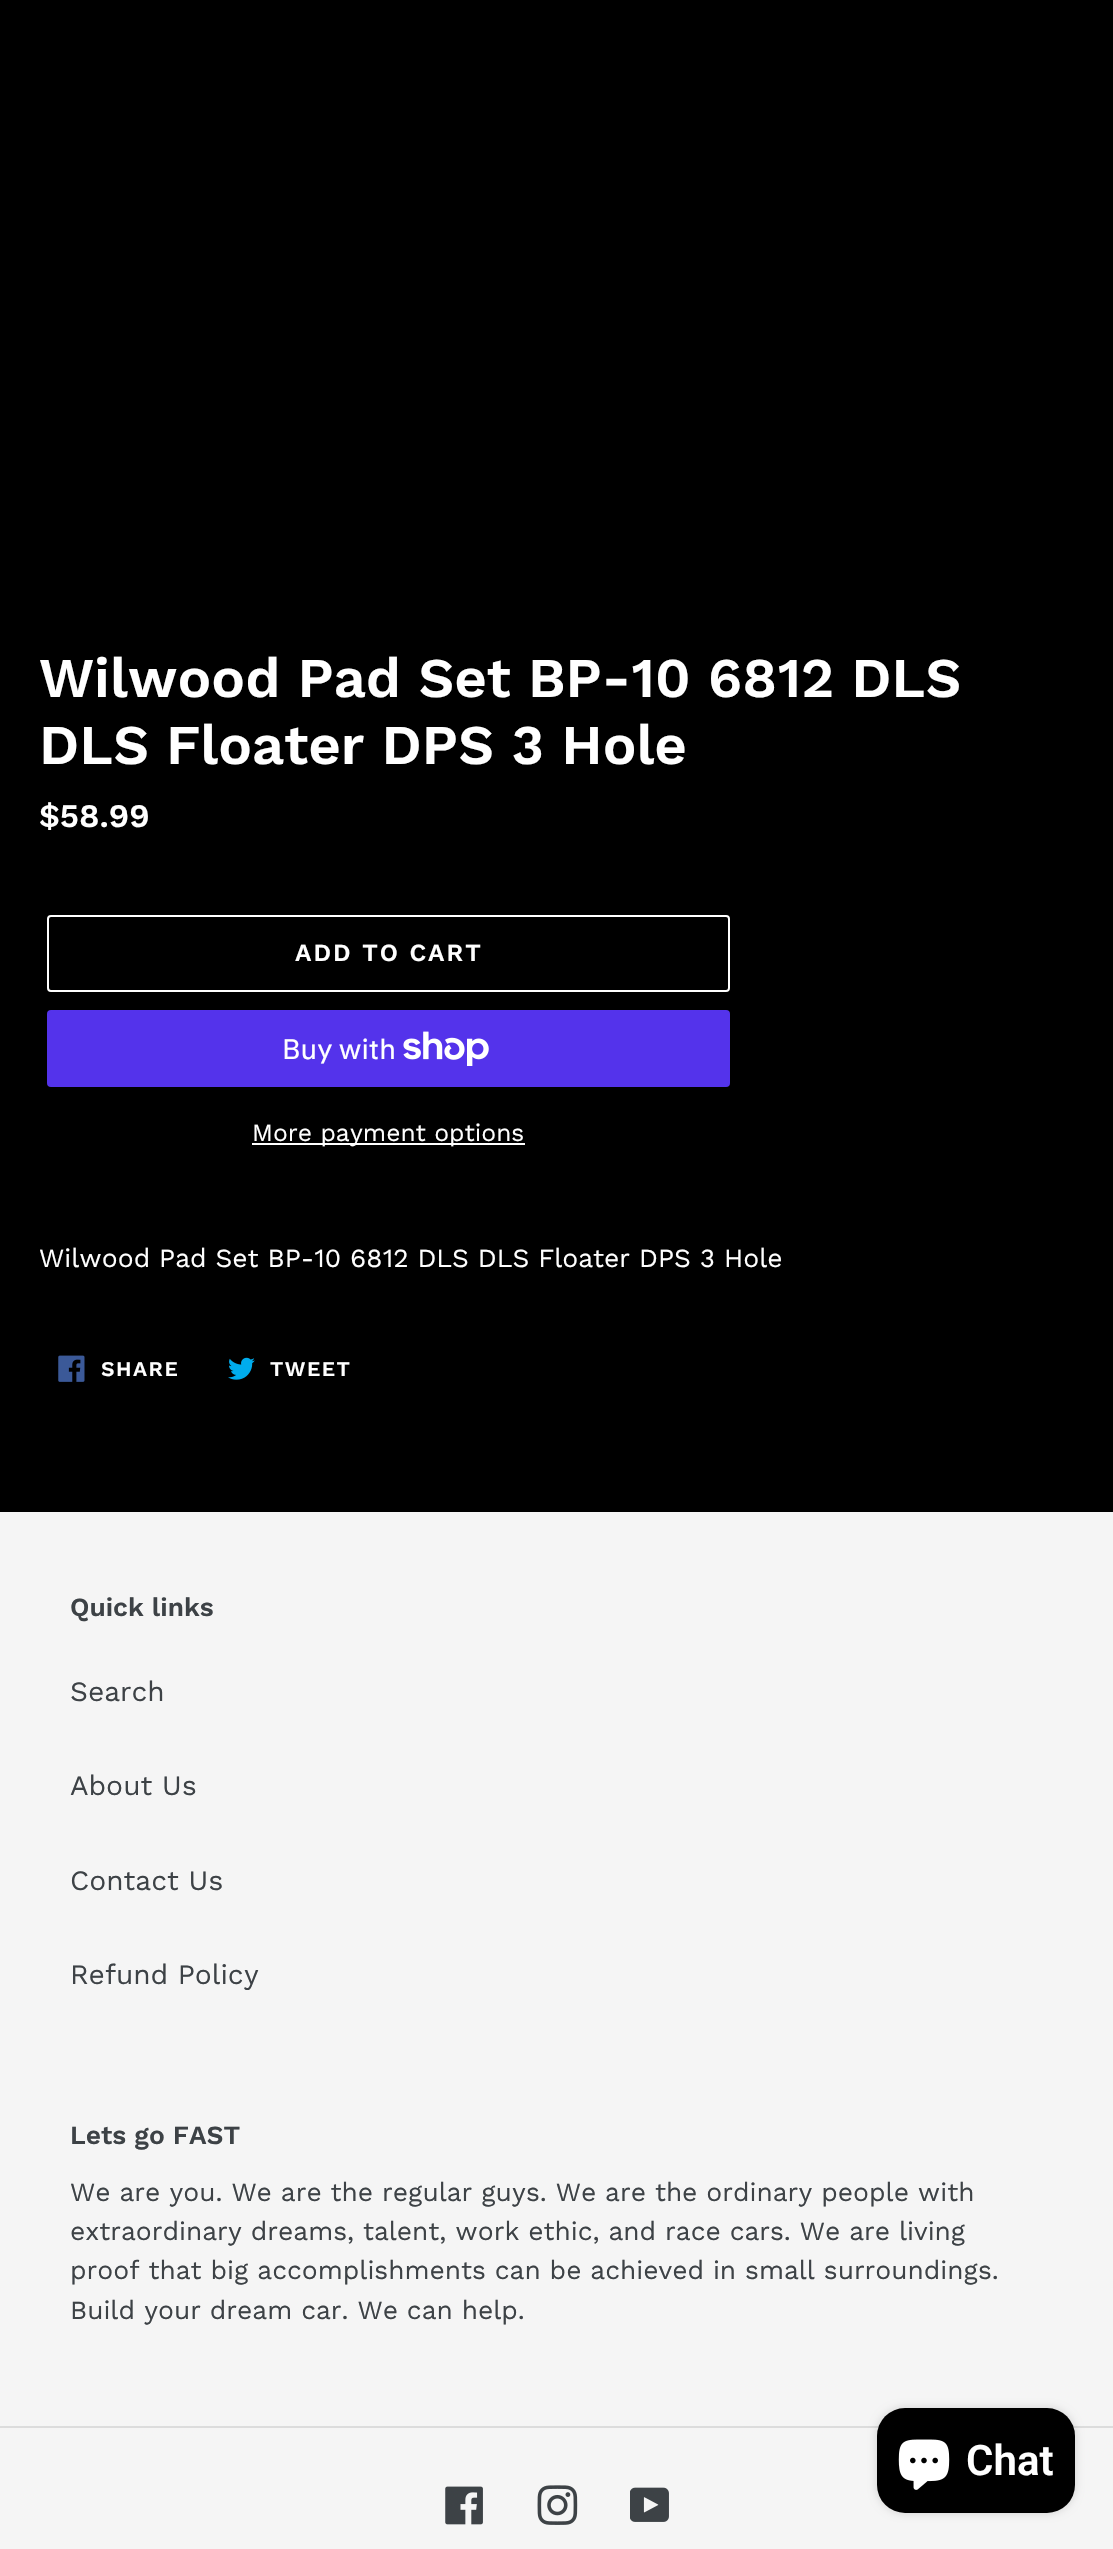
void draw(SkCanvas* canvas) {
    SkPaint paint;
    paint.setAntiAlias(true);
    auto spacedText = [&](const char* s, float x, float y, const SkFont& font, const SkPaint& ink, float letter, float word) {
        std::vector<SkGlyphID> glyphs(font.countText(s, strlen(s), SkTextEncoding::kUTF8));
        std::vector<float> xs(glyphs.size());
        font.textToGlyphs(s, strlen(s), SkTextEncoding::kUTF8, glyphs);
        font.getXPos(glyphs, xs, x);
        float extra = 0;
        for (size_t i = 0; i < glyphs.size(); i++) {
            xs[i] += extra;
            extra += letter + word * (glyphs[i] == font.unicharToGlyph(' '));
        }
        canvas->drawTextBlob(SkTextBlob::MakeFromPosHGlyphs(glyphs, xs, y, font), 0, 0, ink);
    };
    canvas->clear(0xFF000000);
    SkFont font1(fontMgr->matchFamilyStyle("Work Sans", SkFontStyle(600, SkFontStyle::kNormal_Width, SkFontStyle::kUpright_Slant)), 56);
    font1.setSubpixel(true);
    paint.setColor(0xFFFFFFFF);
    canvas->drawString("Wilwood Pad Set BP-10 6812 DLS", 39, 697, font1, paint);
    canvas->drawString("DLS Floater DPS 3 Hole", 39, 764, font1, paint);
    SkFont font2(fontMgr->matchFamilyStyle("Work Sans", SkFontStyle(600, SkFontStyle::kNormal_Width, SkFontStyle::kUpright_Slant)), 33);
    font2.setSubpixel(true);
    canvas->drawString("$58.99", 39, 827, font2, paint);
    paint.setStyle(SkPaint::kStroke_Style);
    paint.setStrokeWidth(2);
    canvas->drawRoundRect(SkRect::MakeXYWH(48, 916, 681, 75), 3, 3, paint);
    SkFont font3(fontMgr->matchFamilyStyle("Work Sans", SkFontStyle(600, SkFontStyle::kNormal_Width, SkFontStyle::kUpright_Slant)), 24.5f);
    font3.setSubpixel(true);
    paint.setStyle(SkPaint::kFill_Style);
    spacedText("ADD TO CART", 295, 961, font3, paint, 2, 0);
    paint.setColor(0xFF5433EB);
    canvas->drawRoundRect(SkRect::MakeXYWH(47, 1010, 683, 77), 4, 4, paint);
    SkFont font4(fontMgr->matchFamilyStyle("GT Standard", SkFontStyle::Normal()), 28);
    font4.setSubpixel(true);
    paint.setColor(0xFFFFFFFF);
    canvas->drawString("Buy with", 282, 1059, font4, paint);
    canvas->drawImageRect(SkImages::DeferredFromEncodedData(SkData::MakeFromFileName("img1.png")), SkRect::MakeXYWH(403, 1031, 86, 35), SkSamplingOptions());
    canvas->drawRect(SkRect::MakeXYWH(252, 1143, 273, 2), paint);
    SkFont font5(fontMgr->matchFamilyStyle("Work Sans", SkFontStyle::Normal()), 24.5f);
    font5.setSubpixel(true);
    canvas->drawString("More payment options", 252, 1141, font5, paint);
    SkFont font6(fontMgr->matchFamilyStyle("Work Sans", SkFontStyle::Normal()), 26.25f);
    font6.setSubpixel(true);
    canvas->drawString("Wilwood Pad Set BP-10 6812 DLS DLS Floater DPS 3 Hole", 39, 1267, font6, paint);
    canvas->drawImageRect(SkImages::DeferredFromEncodedData(SkData::MakeFromFileName("img2.png")), SkRect::MakeXYWH(58, 1355, 27, 27), SkSamplingOptions());
    SkFont font7(fontMgr->matchFamilyStyle("Work Sans", SkFontStyle(600, SkFontStyle::kNormal_Width, SkFontStyle::kUpright_Slant)), 21);
    font7.setSubpixel(true);
    spacedText("SHARE", 101, 1376, font7, paint, 1.5f, 0);
    canvas->drawImageRect(SkImages::DeferredFromEncodedData(SkData::MakeFromFileName("img3.png")), SkRect::MakeXYWH(228, 1357, 27, 23), SkSamplingOptions());
    spacedText("TWEET", 270, 1376, font7, paint, 1.5f, 0);
    paint.setColor(0xFFF5F5F5);
    canvas->drawRect(SkRect::MakeXYWH(0, 1512, 1113, 1037), paint);
    SkFont font8(fontMgr->matchFamilyStyle("Work Sans", SkFontStyle(600, SkFontStyle::kNormal_Width, SkFontStyle::kUpright_Slant)), 26.25f);
    font8.setSubpixel(true);
    paint.setColor(0xFF3D4246);
    canvas->drawString("Quick links", 70, 1616, font8, paint);
    SkFont font9(fontMgr->matchFamilyStyle("Work Sans", SkFontStyle::Normal()), 28);
    font9.setSubpixel(true);
    canvas->drawString("Search", 70, 1701, font9, paint);
    canvas->drawString("About Us", 70, 1795, font9, paint);
    canvas->drawString("Contact Us", 70, 1890, font9, paint);
    canvas->drawString("Refund Policy", 70, 1984, font9, paint);
    canvas->drawString("Lets go FAST", 70, 2144, font8, paint);
    canvas->drawString("We are you. We are the regular guys. We are the ordinary people with", 70, 2201, font6, paint);
    canvas->drawString("extraordinary dreams, talent, work ethic, and race cars. We are living", 70, 2240, font6, paint);
    canvas->drawString("proof that big accomplishments can be achieved in small surroundings.", 70, 2279, font6, paint);
    canvas->drawString("Build your dream car. We can help.", 70, 2319, font6, paint);
    paint.setColor(0xFFDCDCDC);
    canvas->drawRect(SkRect::MakeXYWH(0, 2426, 1113, 2), paint);
    canvas->drawImageRect(SkImages::DeferredFromEncodedData(SkData::MakeFromFileName("img4.png")), SkRect::MakeXYWH(445, 2486, 38, 39), SkSamplingOptions());
    canvas->drawImageRect(SkImages::DeferredFromEncodedData(SkData::MakeFromFileName("img5.png")), SkRect::MakeXYWH(537, 2485, 41, 40), SkSamplingOptions());
    canvas->drawImageRect(SkImages::DeferredFromEncodedData(SkData::MakeFromFileName("img6.png")), SkRect::MakeXYWH(630, 2487, 39, 35), SkSamplingOptions());
    paint.setColor(0x26000000);
    paint.setMaskFilter(SkMaskFilter::MakeBlur(kNormal_SkBlurStyle, 4.5f));
    canvas->drawRoundRect(SkRect::MakeXYWH(877, 2408, 198, 105), 28, 28, paint);
    paint.setMaskFilter(nullptr);
    paint.setColor(0xFF000000);
    canvas->drawRoundRect(SkRect::MakeXYWH(877, 2408, 198, 105), 28, 28, paint);
    canvas->drawImageRect(SkImages::DeferredFromEncodedData(SkData::MakeFromFileName("img7.png")), SkRect::MakeXYWH(898, 2439, 52, 51), SkSamplingOptions());
    SkFont font10(fontMgr->matchFamilyStyle("Roboto", SkFontStyle(600, SkFontStyle::kNormal_Width, SkFontStyle::kUpright_Slant)), 42);
    font10.setSubpixel(true);
    paint.setColor(0xFFFFFFFF);
    canvas->drawString("Chat", 966, 2475, font10, paint);
}
